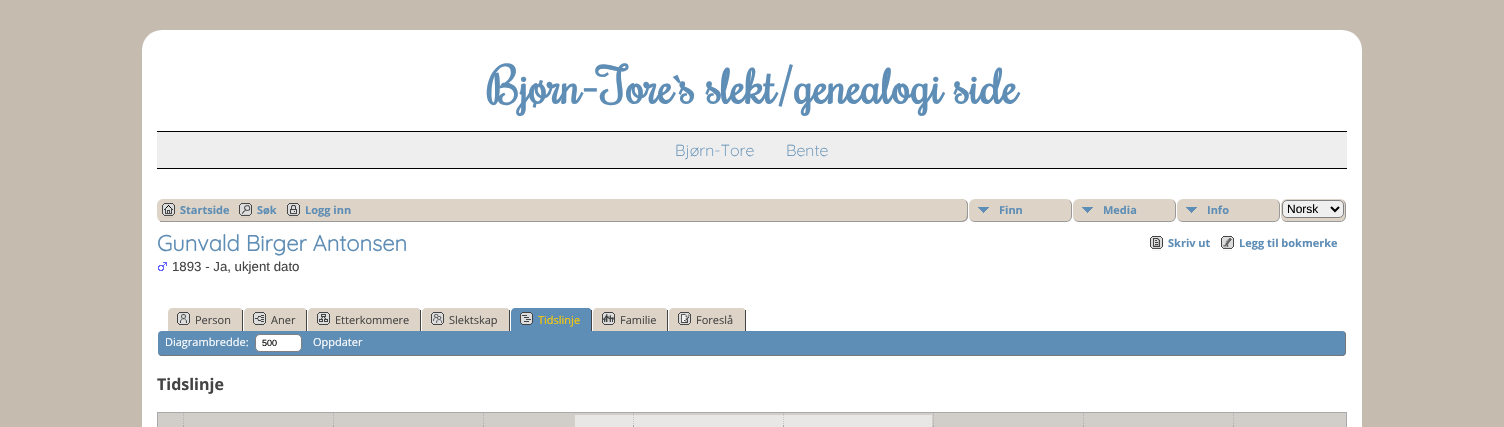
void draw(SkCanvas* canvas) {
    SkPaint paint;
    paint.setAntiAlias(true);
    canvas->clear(0xFFC5BCAF);
    paint.setColor(0xFFFFFFFF);
    canvas->drawRoundRect(SkRect::MakeXYWH(142, 30, 1220, 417), 20, 20, paint);
    SkFont font1(fontMgr->matchFamilyStyle("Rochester", SkFontStyle::Bold()), 48);
    font1.setSubpixel(true);
    paint.setColor(0xFF5E8DB5);
    canvas->drawString("Bjørn-Tore`s slekt/genealogi side", 487, 104, font1, paint);
    paint.setColor(0xFFEEEEEE);
    canvas->drawRect(SkRect::MakeXYWH(157, 132, 1190, 36), paint);
    paint.setColor(0xFF000000);
    canvas->drawRect(SkRect::MakeXYWH(157, 131, 1190, 1), paint);
    canvas->drawRect(SkRect::MakeXYWH(157, 168, 1190, 1), paint);
    SkFont font2(fontMgr->matchFamilyStyle("Quicksand", SkFontStyle(300, SkFontStyle::kNormal_Width, SkFontStyle::kUpright_Slant)), 16);
    font2.setSubpixel(true);
    paint.setColor(0xFF5E8DB5);
    canvas->drawString("Bjørn-Tore", 675, 156, font2, paint);
    canvas->drawString("Bente", 786, 156, font2, paint);
    paint.setColor(0xFFDDD4C7);
    canvas->drawRoundRect(SkRect::MakeXYWH(157, 199, 1190, 23), 6, 6, paint);
    paint.setColor(0xFF999999);
    canvas->drawRect(SkRect::MakeXYWH(160, 221, 797, 1), paint);
    canvas->drawImageRect(SkImages::DeferredFromEncodedData(SkData::MakeFromFileName("img1.png")), SkRect::MakeXYWH(162, 203, 13, 15), SkSamplingOptions());
    SkFont font3(fontMgr->matchFamilyStyle("Open Sans", SkFontStyle::Bold()), 11);
    font3.setSubpixel(true);
    paint.setColor(0xFF5E8DB5);
    canvas->drawString("Startside", 180, 214, font3, paint);
    canvas->drawImageRect(SkImages::DeferredFromEncodedData(SkData::MakeFromFileName("img2.png")), SkRect::MakeXYWH(239, 203, 13, 15), SkSamplingOptions());
    canvas->drawString("Søk", 257, 214, font3, paint);
    canvas->drawImageRect(SkImages::DeferredFromEncodedData(SkData::MakeFromFileName("img3.png")), SkRect::MakeXYWH(287, 203, 13, 15), SkSamplingOptions());
    canvas->drawString("Logg inn", 305, 214, font3, paint);
    paint.setColor(0xFFFFFFFF);
    canvas->drawRect(SkRect::MakeXYWH(962, 199, 385, 23), paint);
    paint.setColor(0xFFDDD4C7);
    canvas->drawPath(SkPathBuilder().moveTo(957, 199).lineTo(962, 199).cubicTo(965.5f, 199, 968, 201.5f, 968, 205).lineTo(968, 216).cubicTo(968, 219.5f, 965.5f, 222, 962, 222).lineTo(957, 222).close().detach(), paint);
    paint.setColor(0xFF999999);
    canvas->drawPath(SkPathBuilder(SkPathFillType::kEvenOdd).moveTo(957, 199).cubicTo(961, 199, 967, 198.5f, 968, 204).lineTo(968, 217).cubicTo(967, 222.5f, 961, 222, 957, 222).close().moveTo(957, 199).lineTo(963, 199).cubicTo(968, 200.5f, 967, 207, 967, 210.5f).cubicTo(967, 220.5f, 966.5f, 221, 957, 221).close().detach(), paint);
    paint.setColor(0xFFDDD4C7);
    canvas->drawRoundRect(SkRect::MakeXYWH(969, 199, 103, 23), 6, 6, paint);
    canvas->drawImageRect(SkImages::DeferredFromEncodedData(SkData::MakeFromFileName("img4.png")), SkRect::MakeXYWH(978, 207, 11, 6), SkSamplingOptions());
    paint.setColor(0xFF999999);
    canvas->drawPath(SkPathBuilder(SkPathFillType::kEvenOdd).moveTo(975, 199).lineTo(1066, 199).cubicTo(1069, 199, 1072, 202, 1072, 205).lineTo(1072, 216).cubicTo(1072, 219, 1069, 222, 1066, 222).lineTo(975, 222).cubicTo(972, 222, 969, 219, 969, 216).lineTo(969, 205).cubicTo(969, 202, 972, 199, 975, 199).close().moveTo(975, 199).lineTo(1066, 199).cubicTo(1069, 199, 1071, 202, 1071, 205).lineTo(1071, 216).cubicTo(1071, 219, 1069, 221, 1066, 221).lineTo(975, 221).cubicTo(972, 221, 969, 219, 969, 216).lineTo(969, 205).cubicTo(969, 202, 972, 199, 975, 199).close().detach(), paint);
    paint.setColor(0xFF5E8DB5);
    canvas->drawString("Finn", 999, 214, font3, paint);
    paint.setColor(0xFFDDD4C7);
    canvas->drawRoundRect(SkRect::MakeXYWH(1073, 199, 103, 23), 6, 6, paint);
    canvas->drawImageRect(SkImages::DeferredFromEncodedData(SkData::MakeFromFileName("img4.png")), SkRect::MakeXYWH(1082, 207, 11, 6), SkSamplingOptions());
    paint.setColor(0xFF999999);
    canvas->drawPath(SkPathBuilder(SkPathFillType::kEvenOdd).moveTo(1079, 199).lineTo(1170, 199).cubicTo(1173, 199, 1176, 202, 1176, 205).lineTo(1176, 216).cubicTo(1176, 219, 1173, 222, 1170, 222).lineTo(1079, 222).cubicTo(1076, 222, 1073, 219, 1073, 216).lineTo(1073, 205).cubicTo(1073, 202, 1076, 199, 1079, 199).close().moveTo(1079, 199).lineTo(1170, 199).cubicTo(1173, 199, 1175, 202, 1175, 205).lineTo(1175, 216).cubicTo(1175, 219, 1173, 221, 1170, 221).lineTo(1079, 221).cubicTo(1076, 221, 1073, 219, 1073, 216).lineTo(1073, 205).cubicTo(1073, 202, 1076, 199, 1079, 199).close().detach(), paint);
    paint.setColor(0xFF5E8DB5);
    canvas->drawString("Media", 1103, 214, font3, paint);
    paint.setColor(0xFFDDD4C7);
    canvas->drawRoundRect(SkRect::MakeXYWH(1177, 199, 103, 23), 6, 6, paint);
    canvas->drawImageRect(SkImages::DeferredFromEncodedData(SkData::MakeFromFileName("img4.png")), SkRect::MakeXYWH(1186, 207, 11, 6), SkSamplingOptions());
    paint.setColor(0xFF999999);
    canvas->drawPath(SkPathBuilder(SkPathFillType::kEvenOdd).moveTo(1183, 199).lineTo(1274, 199).cubicTo(1277, 199, 1280, 202, 1280, 205).lineTo(1280, 216).cubicTo(1280, 219, 1277, 222, 1274, 222).lineTo(1183, 222).cubicTo(1180, 222, 1177, 219, 1177, 216).lineTo(1177, 205).cubicTo(1177, 202, 1180, 199, 1183, 199).close().moveTo(1183, 199).lineTo(1274, 199).cubicTo(1277, 199, 1279, 202, 1279, 205).lineTo(1279, 216).cubicTo(1279, 219, 1277, 221, 1274, 221).lineTo(1183, 221).cubicTo(1180, 221, 1177, 219, 1177, 216).lineTo(1177, 205).cubicTo(1177, 202, 1180, 199, 1183, 199).close().detach(), paint);
    paint.setColor(0xFF5E8DB5);
    canvas->drawString("Info", 1207, 214, font3, paint);
    paint.setColor(0xFFDDD4C7);
    canvas->drawRoundRect(SkRect::MakeXYWH(1281, 199, 65, 23), 6, 6, paint);
    paint.setColor(0xFF999999);
    canvas->drawPath(SkPathBuilder(SkPathFillType::kEvenOdd).moveTo(1287, 199).lineTo(1340, 199).cubicTo(1343, 199, 1346, 202, 1346, 205).lineTo(1346, 216).cubicTo(1346, 219, 1343, 222, 1340, 222).lineTo(1287, 222).cubicTo(1284, 222, 1281, 219, 1281, 216).lineTo(1281, 205).cubicTo(1281, 202, 1284, 199, 1287, 199).close().moveTo(1287, 199).lineTo(1340, 199).cubicTo(1343, 199, 1345, 202, 1345, 205).lineTo(1345, 216).cubicTo(1345, 219, 1343, 221, 1340, 221).lineTo(1287, 221).cubicTo(1284, 221, 1281, 219, 1281, 216).lineTo(1281, 205).cubicTo(1281, 202, 1284, 199, 1287, 199).close().detach(), paint);
    paint.setColor(0xFFEFEFEF);
    canvas->drawRoundRect(SkRect::MakeXYWH(1282.5f, 200.5f, 61, 17), 4.5f, 4.5f, paint);
    paint.setStyle(SkPaint::kStroke_Style);
    paint.setStrokeWidth(1);
    paint.setColor(0xFF808080);
    canvas->drawRoundRect(SkRect::MakeXYWH(1282.5f, 200.5f, 61, 17), 4.5f, 4.5f, paint);
    paint.setStrokeWidth(2);
    paint.setColor(0xFF000000);
    canvas->drawPath(SkPathBuilder().moveTo(1331, 207).lineTo(1335, 211).lineTo(1339, 207).detach(), paint);
    SkFont font4(fontMgr->matchFamilyStyle("Liberation Sans", SkFontStyle::Normal()), 12);
    font4.setSubpixel(true);
    paint.setStyle(SkPaint::kFill_Style);
    canvas->drawString("Norsk", 1287, 213, font4, paint);
    SkFont font5(fontMgr->matchFamilyStyle("Quicksand", SkFontStyle::Bold()), 22);
    font5.setSubpixel(true);
    paint.setColor(0xFF5E8DB5);
    canvas->drawString("Gunvald Birger Antonsen", 157, 251, font5, paint);
    canvas->drawImageRect(SkImages::DeferredFromEncodedData(SkData::MakeFromFileName("img5.png")), SkRect::MakeXYWH(1150, 236, 13, 15), SkSamplingOptions());
    canvas->drawString("Skriv ut", 1168, 247, font3, paint);
    canvas->drawImageRect(SkImages::DeferredFromEncodedData(SkData::MakeFromFileName("img6.png")), SkRect::MakeXYWH(1221, 236, 13, 15), SkSamplingOptions());
    canvas->drawString("Legg til bokmerke", 1239, 247, font3, paint);
    canvas->drawImageRect(SkImages::DeferredFromEncodedData(SkData::MakeFromFileName("img7.png")), SkRect::MakeXYWH(158, 262, 9, 9), SkSamplingOptions());
    SkFont font6(fontMgr->matchFamilyStyle("Liberation Sans", SkFontStyle::Normal()), 13.25f);
    font6.setSubpixel(true);
    paint.setColor(0xFF444444);
    canvas->drawString("1893 - Ja, ukjent dato", 172, 271, font6, paint);
    paint.setColor(0xFFDDD4C7);
    canvas->drawPath(SkPathBuilder().moveTo(172, 308).lineTo(239, 308).cubicTo(241, 308, 243, 310, 243, 312).lineTo(243, 331).lineTo(168, 331).lineTo(168, 312).cubicTo(168, 310, 170, 308, 172, 308).close().detach(), paint);
    paint.setColor(0xFF444444);
    canvas->drawRect(SkRect::MakeXYWH(242, 310, 1, 21), paint);
    canvas->drawImageRect(SkImages::DeferredFromEncodedData(SkData::MakeFromFileName("img8.png")), SkRect::MakeXYWH(177, 312, 13, 13), SkSamplingOptions());
    SkFont font7(fontMgr->matchFamilyStyle("Open Sans", SkFontStyle::Normal()), 11);
    font7.setSubpixel(true);
    canvas->drawString("Person", 195, 324, font7, paint);
    paint.setColor(0xFFDDD4C7);
    canvas->drawPath(SkPathBuilder().moveTo(248, 308).lineTo(303, 308).cubicTo(305, 308, 307, 310, 307, 312).lineTo(307, 331).lineTo(244, 331).lineTo(244, 312).cubicTo(244, 310, 246, 308, 248, 308).close().detach(), paint);
    paint.setColor(0xFF444444);
    canvas->drawRect(SkRect::MakeXYWH(306, 310, 1, 21), paint);
    canvas->drawImageRect(SkImages::DeferredFromEncodedData(SkData::MakeFromFileName("img9.png")), SkRect::MakeXYWH(253, 312, 13, 13), SkSamplingOptions());
    canvas->drawString("Aner", 271, 324, font7, paint);
    paint.setColor(0xFFDDD4C7);
    canvas->drawPath(SkPathBuilder().moveTo(312, 308).lineTo(417, 308).cubicTo(419, 308, 421, 310, 421, 312).lineTo(421, 331).lineTo(308, 331).lineTo(308, 312).cubicTo(308, 310, 310, 308, 312, 308).close().detach(), paint);
    paint.setColor(0xFF444444);
    canvas->drawRect(SkRect::MakeXYWH(420, 310, 1, 21), paint);
    canvas->drawImageRect(SkImages::DeferredFromEncodedData(SkData::MakeFromFileName("img10.png")), SkRect::MakeXYWH(317, 312, 13, 13), SkSamplingOptions());
    canvas->drawString("Etterkommere", 335, 324, font7, paint);
    paint.setColor(0xFFDDD4C7);
    canvas->drawPath(SkPathBuilder().moveTo(426, 308).lineTo(506, 308).cubicTo(508, 308, 510, 310, 510, 312).lineTo(510, 331).lineTo(422, 331).lineTo(422, 312).cubicTo(422, 310, 424, 308, 426, 308).close().detach(), paint);
    paint.setColor(0xFF444444);
    canvas->drawRect(SkRect::MakeXYWH(509, 310, 1, 21), paint);
    canvas->drawImageRect(SkImages::DeferredFromEncodedData(SkData::MakeFromFileName("img11.png")), SkRect::MakeXYWH(431, 312, 13, 13), SkSamplingOptions());
    canvas->drawString("Slektskap", 449, 324, font7, paint);
    paint.setColor(0xFF5E8DB5);
    canvas->drawPath(SkPathBuilder().moveTo(515, 308).lineTo(588, 308).cubicTo(590, 308, 592, 310, 592, 312).lineTo(592, 331).lineTo(511, 331).lineTo(511, 312).cubicTo(511, 310, 513, 308, 515, 308).close().detach(), paint);
    paint.setColor(0xFF444444);
    canvas->drawRect(SkRect::MakeXYWH(591, 310, 1, 21), paint);
    canvas->drawImageRect(SkImages::DeferredFromEncodedData(SkData::MakeFromFileName("img12.png")), SkRect::MakeXYWH(520, 312, 13, 13), SkSamplingOptions());
    paint.setColor(0xFFFFCC00);
    canvas->drawString("Tidslinje", 538, 324, font7, paint);
    paint.setColor(0xFFDDD4C7);
    canvas->drawPath(SkPathBuilder().moveTo(597, 308).lineTo(664, 308).cubicTo(666, 308, 668, 310, 668, 312).lineTo(668, 331).lineTo(593, 331).lineTo(593, 312).cubicTo(593, 310, 595, 308, 597, 308).close().detach(), paint);
    paint.setColor(0xFF444444);
    canvas->drawRect(SkRect::MakeXYWH(667, 310, 1, 21), paint);
    canvas->drawImageRect(SkImages::DeferredFromEncodedData(SkData::MakeFromFileName("img13.png")), SkRect::MakeXYWH(602, 312, 13, 13), SkSamplingOptions());
    canvas->drawString("Familie", 620, 324, font7, paint);
    paint.setColor(0xFFDDD4C7);
    canvas->drawPath(SkPathBuilder().moveTo(673, 308).lineTo(742, 308).cubicTo(744, 308, 746, 310, 746, 312).lineTo(746, 331).lineTo(669, 331).lineTo(669, 312).cubicTo(669, 310, 671, 308, 673, 308).close().detach(), paint);
    paint.setColor(0xFF444444);
    canvas->drawRect(SkRect::MakeXYWH(745, 310, 1, 21), paint);
    canvas->drawImageRect(SkImages::DeferredFromEncodedData(SkData::MakeFromFileName("img14.png")), SkRect::MakeXYWH(678, 312, 13, 13), SkSamplingOptions());
    canvas->drawString("Foreslå", 696, 324, font7, paint);
    paint.setColor(0xFF5E8DB5);
    canvas->drawRoundRect(SkRect::MakeXYWH(158, 331, 1188, 25), 4, 4, paint);
    paint.setColor(0xFF777777);
    canvas->drawPath(SkPathBuilder(SkPathFillType::kEvenOdd).moveTo(162, 331).lineTo(1342, 331).cubicTo(1344, 331, 1346, 333, 1346, 335).lineTo(1346, 352).cubicTo(1346, 354, 1344, 356, 1342, 356).lineTo(162, 356).cubicTo(160, 356, 158, 354, 158, 352).lineTo(158, 335).cubicTo(158, 333, 160, 331, 162, 331).close().moveTo(162, 331).lineTo(1342, 331).cubicTo(1344, 331, 1345, 333, 1345, 335).lineTo(1345, 352).cubicTo(1345, 354, 1344, 355, 1342, 355).lineTo(162, 355).cubicTo(160, 355, 158, 354, 158, 352).lineTo(158, 335).cubicTo(158, 333, 160, 331, 162, 331).close().detach(), paint);
    paint.setColor(0xFFFFFFFF);
    canvas->drawString("Diagrambredde:", 165, 346, font7, paint);
    canvas->drawRoundRect(SkRect::MakeXYWH(255.5f, 334.5f, 46, 17), 4.5f, 4.5f, paint);
    paint.setStyle(SkPaint::kStroke_Style);
    paint.setStrokeWidth(1);
    paint.setColor(0xFF808080);
    canvas->drawRoundRect(SkRect::MakeXYWH(255.5f, 334.5f, 46, 17), 4.5f, 4.5f, paint);
    SkFont font8(fontMgr->matchFamilyStyle("Liberation Sans", SkFontStyle::Normal()), 9);
    font8.setSubpixel(true);
    paint.setStyle(SkPaint::kFill_Style);
    paint.setColor(0xFF000000);
    canvas->drawString("500", 262, 346, font8, paint);
    paint.setColor(0xFFFFFFFF);
    canvas->drawString("Oppdater", 313, 346, font7, paint);
    SkFont font9(fontMgr->matchFamilyStyle("Open Sans", SkFontStyle::Bold()), 16);
    font9.setSubpixel(true);
    paint.setColor(0xFF444444);
    canvas->drawString("Tidslinje", 157, 390, font9, paint);
    paint.setStyle(SkPaint::kStroke_Style);
    paint.setColor(0xFFAAAAAA);
    canvas->drawRect(SkRect::MakeXYWH(157.5f, 412.5f, 1189, 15), paint);
    paint.setStyle(SkPaint::kFill_Style);
    paint.setColor(0xFFD1CECA);
    canvas->drawRect(SkRect::MakeXYWH(158, 413, 1188, 14), paint);
    paint.setColor(0xFFE8E7E5);
    canvas->drawRect(SkRect::MakeXYWH(575, 415, 357, 12), paint);
    paint.setStyle(SkPaint::kStroke_Style);
    paint.setColor(0xFFB6B4B1);
    paint.setPathEffect(SkDashPathEffect::Make({{1, 1}}, 0));
    canvas->drawPath(SkPathBuilder().moveTo(183.5f, 413).lineTo(183.5f, 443).detach(), paint);
    paint.setPathEffect(nullptr);
    paint.setPathEffect(SkDashPathEffect::Make({{1, 1}}, 0));
    canvas->drawPath(SkPathBuilder().moveTo(333.5f, 413).lineTo(333.5f, 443).detach(), paint);
    paint.setPathEffect(nullptr);
    paint.setPathEffect(SkDashPathEffect::Make({{1, 1}}, 0));
    canvas->drawPath(SkPathBuilder().moveTo(483.5f, 413).lineTo(483.5f, 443).detach(), paint);
    paint.setPathEffect(nullptr);
    paint.setColor(0x40666666);
    paint.setPathEffect(SkDashPathEffect::Make({{1, 1}}, 0));
    canvas->drawPath(SkPathBuilder().moveTo(633.5f, 413).lineTo(633.5f, 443).detach(), paint);
    paint.setPathEffect(nullptr);
    paint.setPathEffect(SkDashPathEffect::Make({{1, 1}}, 0));
    canvas->drawPath(SkPathBuilder().moveTo(783.5f, 413).lineTo(783.5f, 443).detach(), paint);
    paint.setPathEffect(nullptr);
    paint.setColor(0xFFB6B4B1);
    paint.setPathEffect(SkDashPathEffect::Make({{1, 1}}, 0));
    canvas->drawPath(SkPathBuilder().moveTo(933.5f, 413).lineTo(933.5f, 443).detach(), paint);
    paint.setPathEffect(nullptr);
    paint.setPathEffect(SkDashPathEffect::Make({{1, 1}}, 0));
    canvas->drawPath(SkPathBuilder().moveTo(1083.5f, 413).lineTo(1083.5f, 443).detach(), paint);
    paint.setPathEffect(nullptr);
    paint.setPathEffect(SkDashPathEffect::Make({{1, 1}}, 0));
    canvas->drawPath(SkPathBuilder().moveTo(1233.5f, 413).lineTo(1233.5f, 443).detach(), paint);
    paint.setPathEffect(nullptr);
    paint.setStyle(SkPaint::kFill_Style);
    paint.setColor(0xFFAAAAAA);
    canvas->drawRect(SkRect::MakeXYWH(183, 425, 1, 2), paint);
    canvas->drawRect(SkRect::MakeXYWH(333, 425, 1, 2), paint);
    canvas->drawRect(SkRect::MakeXYWH(483, 425, 1, 2), paint);
    canvas->drawRect(SkRect::MakeXYWH(633, 425, 1, 2), paint);
    canvas->drawRect(SkRect::MakeXYWH(783, 425, 1, 2), paint);
    canvas->drawRect(SkRect::MakeXYWH(933, 425, 1, 2), paint);
    canvas->drawRect(SkRect::MakeXYWH(1083, 425, 1, 2), paint);
    canvas->drawRect(SkRect::MakeXYWH(1233, 425, 1, 2), paint);
}
